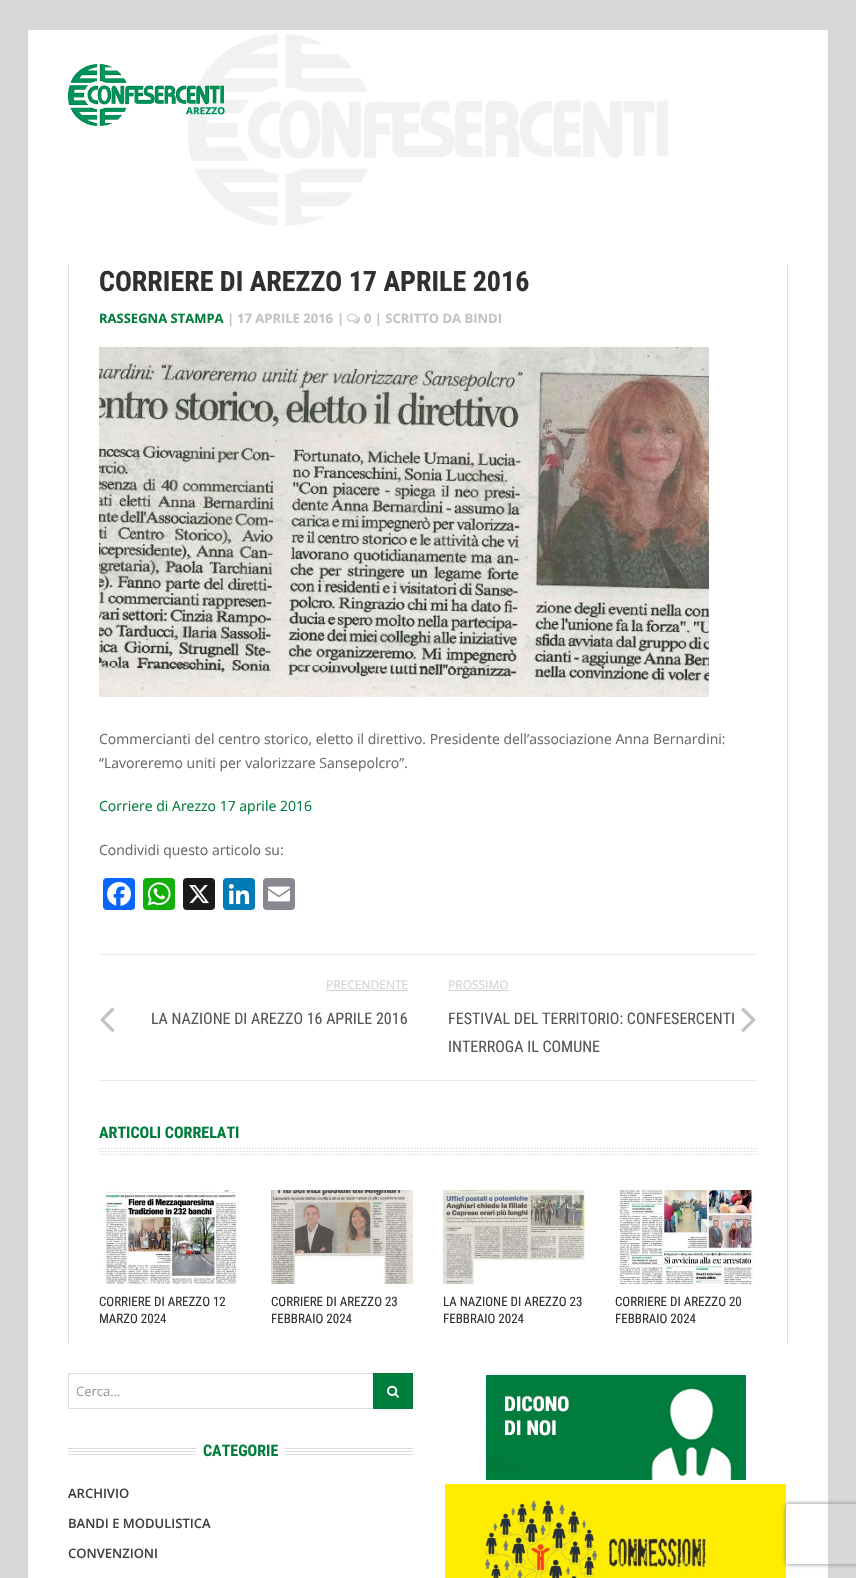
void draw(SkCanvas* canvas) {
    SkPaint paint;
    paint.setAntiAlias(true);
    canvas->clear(0xFFD8D8D8);
    paint.setColor(0xFFFFFFFF);
    canvas->drawRect(SkRect::MakeXYWH(28, 30, 800, 1548), paint);
    canvas->drawImageRect(SkImages::DeferredFromEncodedData(SkData::MakeFromFileName("img1.png")), SkRect::MakeXYWH(188, 34, 480, 192), SkSamplingOptions());
    canvas->drawImageRect(SkImages::DeferredFromEncodedData(SkData::MakeFromFileName("img2.png")), SkRect::MakeXYWH(68, 64, 157, 62), SkSamplingOptions());
    paint.setColor(0xFFDBDBDB);
    canvas->drawRect(SkRect::MakeXYWH(787, 265, 1, 1078), paint);
    canvas->drawRect(SkRect::MakeXYWH(68, 265, 1, 1078), paint);
    SkFont font1(fontMgr->matchFamilyStyle("Roboto Condensed", SkFontStyle::Bold()), 28);
    font1.setSubpixel(true);
    paint.setColor(0xFF303030);
    canvas->drawString("CORRIERE DI AREZZO 17 APRILE 2016", 99, 291, font1, paint);
    SkFont font2(fontMgr->matchFamilyStyle("Open Sans", SkFontStyle::Bold()), 13);
    font2.setSubpixel(true);
    paint.setColor(0xFF007D3D);
    canvas->drawString("RASSEGNA STAMPA", 99, 323, font2, paint);
    paint.setColor(0xFFC3C3C3);
    canvas->drawString("|", 227, 323, font2, paint);
    canvas->drawString("17 APRILE 2016", 237, 323, font2, paint);
    canvas->drawString("|", 337, 323, font2, paint);
    canvas->drawImageRect(SkImages::DeferredFromEncodedData(SkData::MakeFromFileName("img3.png")), SkRect::MakeXYWH(347, 313, 13, 11), SkSamplingOptions());
    canvas->drawString("0 | SCRITTO DA BINDI", 364, 323, font2, paint);
    canvas->drawImageRect(SkImages::DeferredFromEncodedData(SkData::MakeFromFileName("img4.png")), SkRect::MakeXYWH(99, 347, 610, 350), SkSamplingOptions());
    SkFont font3(fontMgr->matchFamilyStyle("Open Sans", SkFontStyle::Normal()), 14);
    font3.setSubpixel(true);
    paint.setColor(0xFF696969);
    canvas->drawString("Commercianti del centro storico, eletto il direttivo. Presidente dell’associazione Anna Bernardini:", 99, 744, font3, paint);
    canvas->drawString("“Lavoreremo uniti per valorizzare Sansepolcro”.", 99, 768, font3, paint);
    paint.setColor(0xFF007D3D);
    canvas->drawString("Corriere di Arezzo 17 aprile 2016", 99, 811, font3, paint);
    paint.setColor(0xFF696969);
    canvas->drawString("Condividi questo articolo su:", 99, 855, font3, paint);
    paint.setColor(0xFF0866FF);
    canvas->drawRoundRect(SkRect::MakeXYWH(103, 878, 32, 32), 4, 4, paint);
    canvas->drawImageRect(SkImages::DeferredFromEncodedData(SkData::MakeFromFileName("img5.png")), SkRect::MakeXYWH(107, 882, 24, 24), SkSamplingOptions());
    paint.setColor(0xFF12AF0A);
    canvas->drawRoundRect(SkRect::MakeXYWH(143, 878, 32, 32), 4, 4, paint);
    canvas->drawImageRect(SkImages::DeferredFromEncodedData(SkData::MakeFromFileName("img6.png")), SkRect::MakeXYWH(147, 882, 24, 24), SkSamplingOptions());
    paint.setColor(0xFF1A1A1A);
    canvas->drawRoundRect(SkRect::MakeXYWH(183, 878, 32, 32), 4, 4, paint);
    canvas->drawImageRect(SkImages::DeferredFromEncodedData(SkData::MakeFromFileName("img7.png")), SkRect::MakeXYWH(189, 885, 20, 19), SkSamplingOptions());
    paint.setColor(0xFF007BB5);
    canvas->drawRoundRect(SkRect::MakeXYWH(223, 878, 32, 32), 4, 4, paint);
    canvas->drawImageRect(SkImages::DeferredFromEncodedData(SkData::MakeFromFileName("img8.png")), SkRect::MakeXYWH(228, 883, 22, 22), SkSamplingOptions());
    paint.setColor(0xFF888990);
    canvas->drawRoundRect(SkRect::MakeXYWH(263, 878, 32, 32), 4, 4, paint);
    canvas->drawImageRect(SkImages::DeferredFromEncodedData(SkData::MakeFromFileName("img9.png")), SkRect::MakeXYWH(268, 886, 22, 16), SkSamplingOptions());
    paint.setColor(0xFFEAEAEA);
    canvas->drawRect(SkRect::MakeXYWH(99, 954, 658, 1), paint);
    canvas->drawRect(SkRect::MakeXYWH(99, 1080, 658, 1), paint);
    SkFont font4(fontMgr->matchFamilyStyle("Open Sans", SkFontStyle::Normal()), 12);
    font4.setSubpixel(true);
    paint.setColor(0xFFD2D2D2);
    canvas->drawString("PRECENDENTE", 326, 989, font4, paint);
    canvas->drawRect(SkRect::MakeXYWH(326, 990, 82, 1), paint);
    canvas->drawImageRect(SkImages::DeferredFromEncodedData(SkData::MakeFromFileName("img10.png")), SkRect::MakeXYWH(100, 1007, 15, 25), SkSamplingOptions());
    SkFont font5(fontMgr->matchFamilyStyle("Roboto Condensed", SkFontStyle::Normal()), 16);
    font5.setSubpixel(true);
    paint.setColor(0xFF555555);
    canvas->drawString("LA NAZIONE DI AREZZO 16 APRILE 2016", 151, 1024, font5, paint);
    paint.setColor(0xFFD2D2D2);
    canvas->drawString("PROSSIMO", 448, 989, font4, paint);
    canvas->drawRect(SkRect::MakeXYWH(448, 990, 61, 1), paint);
    paint.setColor(0xFF555555);
    canvas->drawString("FESTIVAL DEL TERRITORIO: CONFESERCENTI", 448, 1024, font5, paint);
    canvas->drawImageRect(SkImages::DeferredFromEncodedData(SkData::MakeFromFileName("img11.png")), SkRect::MakeXYWH(741, 1007, 15, 25), SkSamplingOptions());
    canvas->drawString("INTERROGA IL COMUNE", 448, 1052, font5, paint);
    canvas->drawImageRect(SkImages::DeferredFromEncodedData(SkData::MakeFromFileName("img12.png")), SkRect::MakeXYWH(99, 1148, 658, 7), SkSamplingOptions());
    SkFont font6(fontMgr->matchFamilyStyle("Roboto Condensed", SkFontStyle::Bold()), 16);
    font6.setSubpixel(true);
    paint.setColor(0xFF007D3D);
    canvas->drawString("ARTICOLI CORRELATI", 99, 1138, font6, paint);
    canvas->drawImageRect(SkImages::DeferredFromEncodedData(SkData::MakeFromFileName("img13.png")), SkRect::MakeXYWH(100, 1190, 138, 94), SkSamplingOptions());
    SkFont font7(fontMgr->matchFamilyStyle("Roboto Condensed", SkFontStyle::Normal()), 13);
    font7.setSubpixel(true);
    paint.setColor(0xFF303030);
    canvas->drawString("CORRIERE DI AREZZO 12", 99, 1306, font7, paint);
    canvas->drawString("MARZO 2024", 99, 1323, font7, paint);
    canvas->drawImageRect(SkImages::DeferredFromEncodedData(SkData::MakeFromFileName("img14.png")), SkRect::MakeXYWH(271, 1190, 142, 94), SkSamplingOptions());
    canvas->drawString("CORRIERE DI AREZZO 23", 271, 1306, font7, paint);
    canvas->drawString("FEBBRAIO 2024", 271, 1323, font7, paint);
    canvas->drawImageRect(SkImages::DeferredFromEncodedData(SkData::MakeFromFileName("img15.png")), SkRect::MakeXYWH(443, 1190, 142, 94), SkSamplingOptions());
    canvas->drawString("LA NAZIONE DI AREZZO 23", 443, 1306, font7, paint);
    canvas->drawString("FEBBRAIO 2024", 443, 1323, font7, paint);
    canvas->drawImageRect(SkImages::DeferredFromEncodedData(SkData::MakeFromFileName("img16.png")), SkRect::MakeXYWH(618, 1190, 138, 94), SkSamplingOptions());
    canvas->drawString("CORRIERE DI AREZZO 20", 615, 1306, font7, paint);
    canvas->drawString("FEBBRAIO 2024", 615, 1323, font7, paint);
    paint.setStyle(SkPaint::kStroke_Style);
    paint.setStrokeWidth(1);
    paint.setColor(0xFFDDDDDD);
    canvas->drawRect(SkRect::MakeXYWH(68.5f, 1373.5f, 344, 35), paint);
    SkFont font8(fontMgr->matchFamilyStyle("Open Sans", SkFontStyle::Normal()), 13);
    font8.setSubpixel(true);
    paint.setStyle(SkPaint::kFill_Style);
    paint.setColor(0xFF999999);
    canvas->drawString("Cerca...", 76, 1396, font8, paint);
    paint.setColor(0xFF007D3D);
    canvas->drawRect(SkRect::MakeXYWH(373, 1373, 40, 36), paint);
    canvas->drawImageRect(SkImages::DeferredFromEncodedData(SkData::MakeFromFileName("img17.png")), SkRect::MakeXYWH(387, 1385, 12, 13), SkSamplingOptions());
    canvas->drawImageRect(SkImages::DeferredFromEncodedData(SkData::MakeFromFileName("img18.png")), SkRect::MakeXYWH(68, 1448, 345, 7), SkSamplingOptions());
    paint.setColor(0xFFFFFFFF);
    canvas->drawRect(SkRect::MakeXYWH(196, 1448, 89, 7), paint);
    paint.setColor(0xFF007D3D);
    canvas->drawString("CATEGORIE", 203, 1456, font6, paint);
    SkFont font9(fontMgr->matchFamilyStyle("Open Sans", SkFontStyle(600, SkFontStyle::kNormal_Width, SkFontStyle::kUpright_Slant)), 13);
    font9.setSubpixel(true);
    paint.setColor(0xFF404040);
    canvas->drawString("ARCHIVIO", 68, 1498, font9, paint);
    canvas->drawString("BANDI E MODULISTICA", 68, 1528, font9, paint);
    canvas->drawString("CONVENZIONI", 68, 1558, font9, paint);
    canvas->drawImageRect(SkImages::DeferredFromEncodedData(SkData::MakeFromFileName("img19.png")), SkRect::MakeXYWH(486, 1375, 260, 105), SkSamplingOptions());
    canvas->drawImageRect(SkImages::DeferredFromEncodedData(SkData::MakeFromFileName("img20.png")), SkRect::MakeXYWH(445, 1484, 341, 94), SkSamplingOptions());
    canvas->save();
    canvas->clipPath(SkPathBuilder(SkPathFillType::kEvenOdd).moveTo(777, 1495).lineTo(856, 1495).lineTo(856, 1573).lineTo(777, 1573).close().moveTo(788, 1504).lineTo(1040, 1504).cubicTo(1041, 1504, 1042, 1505, 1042, 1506).lineTo(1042, 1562).cubicTo(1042, 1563, 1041, 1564, 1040, 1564).lineTo(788, 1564).cubicTo(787, 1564, 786, 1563, 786, 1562).lineTo(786, 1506).cubicTo(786, 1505, 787, 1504, 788, 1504).close().detach(), true);
    paint.setColor(0xFF808080);
    paint.setMaskFilter(SkMaskFilter::MakeBlur(kNormal_SkBlurStyle, 2.5f));
    canvas->drawRoundRect(SkRect::MakeXYWH(786, 1504, 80, 60), 2, 2, paint);
    paint.setMaskFilter(nullptr);
    canvas->restore();
}
